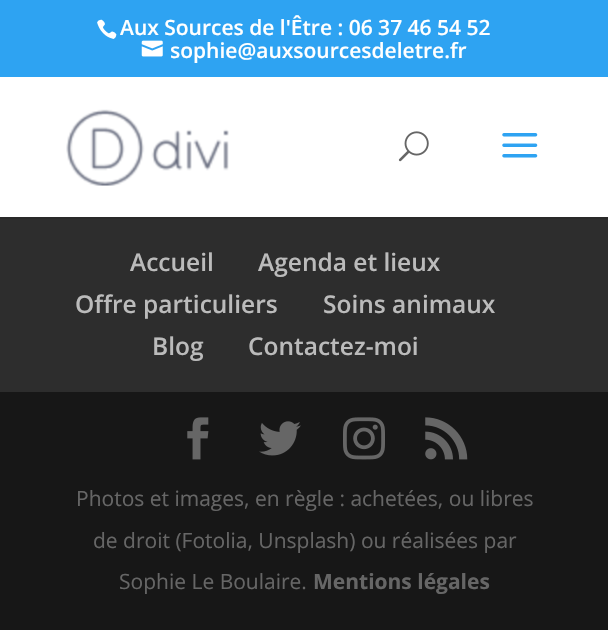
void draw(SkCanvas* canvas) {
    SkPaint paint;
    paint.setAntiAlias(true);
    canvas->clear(0xFFFFFFFF);
    paint.setColor(0xFF2EA3F2);
    canvas->drawRect(SkRect::MakeXYWH(0, 0, 608, 77), paint);
    canvas->drawImageRect(SkImages::DeferredFromEncodedData(SkData::MakeFromFileName("img1.png")), SkRect::MakeXYWH(97, 19, 20, 20), SkSamplingOptions());
    SkFont font1(fontMgr->matchFamilyStyle("Open Sans", SkFontStyle(600, SkFontStyle::kNormal_Width, SkFontStyle::kUpright_Slant)), 21);
    font1.setSubpixel(true);
    paint.setColor(0xFFFFFFFF);
    canvas->drawString("Aux Sources de l'Être : 06 37 46 54 52", 120, 35, font1, paint);
    canvas->drawImageRect(SkImages::DeferredFromEncodedData(SkData::MakeFromFileName("img2.png")), SkRect::MakeXYWH(141, 40, 22, 17), SkSamplingOptions());
    canvas->drawString("sophie@auxsourcesdeletre.fr", 170, 58, font1, paint);
    paint.setColor(0xFF292929);
    canvas->drawRect(SkRect::MakeXYWH(0, 217, 608, 2), paint);
    canvas->drawImageRect(SkImages::DeferredFromEncodedData(SkData::MakeFromFileName("img3.png")), SkRect::MakeXYWH(66, 109, 163, 77), SkSamplingOptions());
    canvas->drawImageRect(SkImages::DeferredFromEncodedData(SkData::MakeFromFileName("img4.png")), SkRect::MakeXYWH(398, 131, 31, 31), SkSamplingOptions());
    canvas->drawImageRect(SkImages::DeferredFromEncodedData(SkData::MakeFromFileName("img5.png")), SkRect::MakeXYWH(502, 133, 36, 25), SkSamplingOptions());
    paint.setColor(0xFF2D2D2D);
    canvas->drawRect(SkRect::MakeXYWH(0, 219, 608, 173), paint);
    SkFont font2(fontMgr->matchFamilyStyle("Open Sans", SkFontStyle(600, SkFontStyle::kNormal_Width, SkFontStyle::kUpright_Slant)), 24.5f);
    font2.setSubpixel(true);
    paint.setColor(0xFFBBBBBB);
    canvas->drawString("Accueil", 130, 271, font2, paint);
    canvas->drawString("Agenda et lieux", 258, 271, font2, paint);
    canvas->drawString("Offre particuliers", 75, 313, font2, paint);
    canvas->drawString("Soins animaux", 323, 313, font2, paint);
    canvas->drawString("Blog", 152, 355, font2, paint);
    canvas->drawString("Contactez-moi", 248, 355, font2, paint);
    paint.setColor(0xFF171717);
    canvas->drawRect(SkRect::MakeXYWH(0, 392, 608, 238), paint);
    canvas->drawImageRect(SkImages::DeferredFromEncodedData(SkData::MakeFromFileName("img6.png")), SkRect::MakeXYWH(187, 417, 22, 43), SkSamplingOptions());
    canvas->drawImageRect(SkImages::DeferredFromEncodedData(SkData::MakeFromFileName("img7.png")), SkRect::MakeXYWH(259, 421, 42, 35), SkSamplingOptions());
    canvas->drawImageRect(SkImages::DeferredFromEncodedData(SkData::MakeFromFileName("img8.png")), SkRect::MakeXYWH(343, 417, 42, 43), SkSamplingOptions());
    canvas->drawImageRect(SkImages::DeferredFromEncodedData(SkData::MakeFromFileName("img9.png")), SkRect::MakeXYWH(425, 417, 43, 43), SkSamplingOptions());
    SkFont font3(fontMgr->matchFamilyStyle("Open Sans", SkFontStyle::Normal()), 21);
    font3.setSubpixel(true);
    paint.setColor(0xFF666666);
    canvas->drawString("Photos et images, en règle : achetées, ou libres", 76, 506, font3, paint);
    canvas->drawString("de droit (Fotolia, Unsplash) ou réalisées par", 93, 548, font3, paint);
    canvas->drawString("Sophie Le Boulaire.", 119, 589, font3, paint);
    SkFont font4(fontMgr->matchFamilyStyle("Open Sans", SkFontStyle::Bold()), 21);
    font4.setSubpixel(true);
    canvas->drawString("Mentions légales", 313, 589, font4, paint);
}
